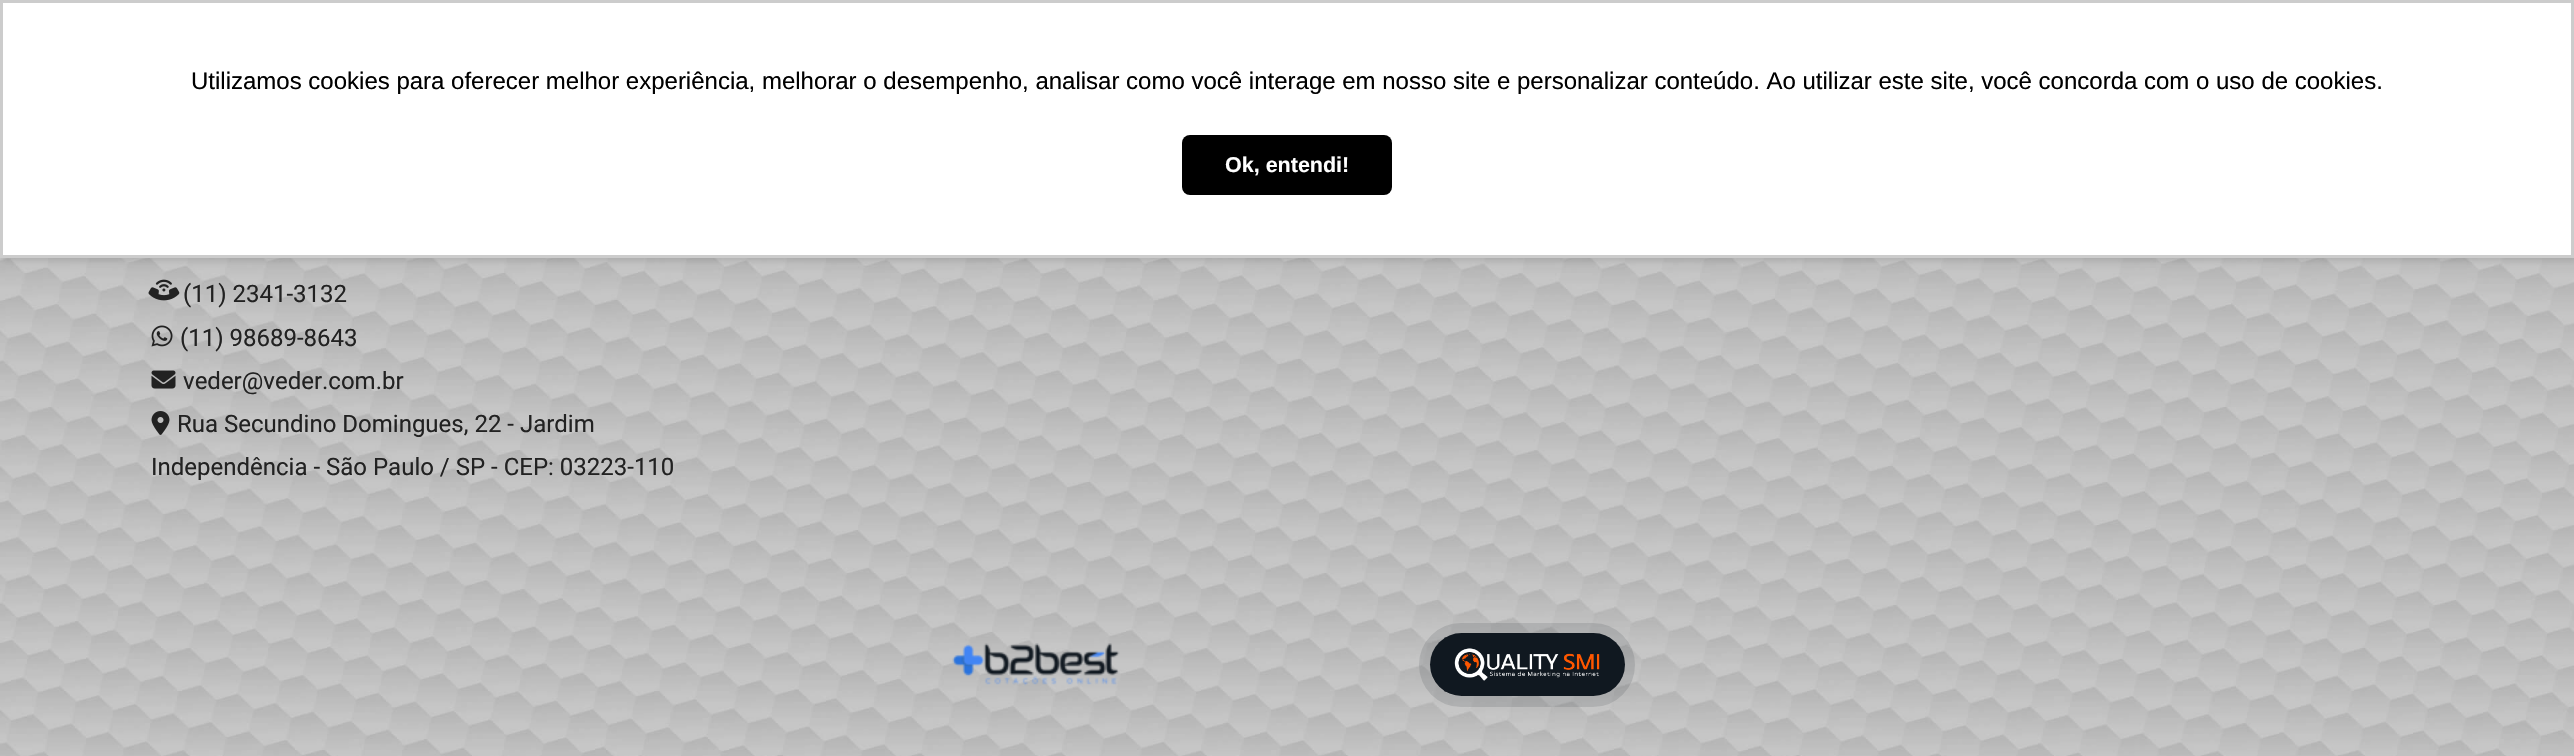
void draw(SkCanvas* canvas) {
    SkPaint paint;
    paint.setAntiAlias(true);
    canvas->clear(0xFFFFFFFF);
    canvas->drawImageRect(SkImages::DeferredFromEncodedData(SkData::MakeFromFileName("img1.png")), SkRect::MakeXYWH(0, 258, 2574, 498), SkSamplingOptions());
    paint.setColor(0x33000000);
    canvas->drawRect(SkRect::MakeXYWH(0, 258, 2574, 285), paint);
    paint.setColor(0x1A000000);
    paint.setMaskFilter(SkMaskFilter::MakeBlur(kNormal_SkBlurStyle, 3));
    canvas->drawRect(SkRect::MakeXYWH(2, 3, 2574, 258), paint);
    paint.setMaskFilter(nullptr);
    paint.setColor(0xFFFFFFFF);
    canvas->drawRect(SkRect::MakeXYWH(1.5f, 1.5f, 2571, 255), paint);
    paint.setStyle(SkPaint::kStroke_Style);
    paint.setStrokeWidth(3);
    paint.setColor(0xFFCCCCCC);
    canvas->drawRect(SkRect::MakeXYWH(1.5f, 1.5f, 2571, 255), paint);
    SkFont font1(fontMgr->matchFamilyStyle("Liberation Sans", SkFontStyle::Normal()), 24);
    font1.setSubpixel(true);
    paint.setStyle(SkPaint::kFill_Style);
    paint.setColor(0xFF000000);
    canvas->drawString("Utilizamos cookies para oferecer melhor experiência, melhorar o desempenho, analisar como você interage em nosso site e personalizar conteúdo. Ao utilizar este site, você concorda com o uso de cookies.", 191, 89, font1, paint);
    canvas->drawRoundRect(SkRect::MakeXYWH(1182, 135, 210, 60), 8, 8, paint);
    SkFont font2(fontMgr->matchFamilyStyle("Liberation Sans", SkFontStyle::Bold()), 21.5f);
    font2.setSubpixel(true);
    paint.setColor(0xFFFFFFFF);
    canvas->drawString("Ok, entendi!", 1225, 172, font2, paint);
    canvas->drawImageRect(SkImages::DeferredFromEncodedData(SkData::MakeFromFileName("img2.png")), SkRect::MakeXYWH(148, 279, 32, 22), SkSamplingOptions());
    SkFont font3(fontMgr->matchFamilyStyle("Roboto", SkFontStyle::Normal()), 24);
    font3.setSubpixel(true);
    paint.setColor(0xFF222222);
    canvas->drawString("(11) 2341-3132", 183, 302, font3, paint);
    canvas->drawImageRect(SkImages::DeferredFromEncodedData(SkData::MakeFromFileName("img3.png")), SkRect::MakeXYWH(151, 325, 22, 22), SkSamplingOptions());
    canvas->drawString("(11) 98689-8643", 180, 346, font3, paint);
    canvas->drawImageRect(SkImages::DeferredFromEncodedData(SkData::MakeFromFileName("img4.png")), SkRect::MakeXYWH(151, 370, 25, 19), SkSamplingOptions());
    canvas->drawString("veder@veder.com.br", 183, 389, font3, paint);
    canvas->drawImageRect(SkImages::DeferredFromEncodedData(SkData::MakeFromFileName("img5.png")), SkRect::MakeXYWH(151, 411, 19, 24), SkSamplingOptions());
    canvas->drawString("Rua Secundino Domingues, 22 - Jardim", 177, 432, font3, paint);
    canvas->drawString("Independência - São Paulo / SP - CEP: 03223-110", 151, 475, font3, paint);
    paint.setColor(0x33000000);
    canvas->drawRect(SkRect::MakeXYWH(0, 543, 2574, 213), paint);
    canvas->drawImageRect(SkImages::DeferredFromEncodedData(SkData::MakeFromFileName("img6.png")), SkRect::MakeXYWH(952, 643, 168, 43), SkSamplingOptions());
    paint.setStyle(SkPaint::kStroke_Style);
    paint.setStrokeWidth(11);
    paint.setColor(0x1F101820);
    canvas->drawRoundRect(SkRect::MakeXYWH(1424.5f, 628.5f, 205, 73), 36.5f, 36.5f, paint);
    paint.setStyle(SkPaint::kFill_Style);
    paint.setColor(0xFF101820);
    canvas->drawRoundRect(SkRect::MakeXYWH(1430, 633, 195, 63), 31.5f, 31.5f, paint);
    canvas->drawImageRect(SkImages::DeferredFromEncodedData(SkData::MakeFromFileName("img7.png")), SkRect::MakeXYWH(1444, 637, 166, 55), SkSamplingOptions());
}
